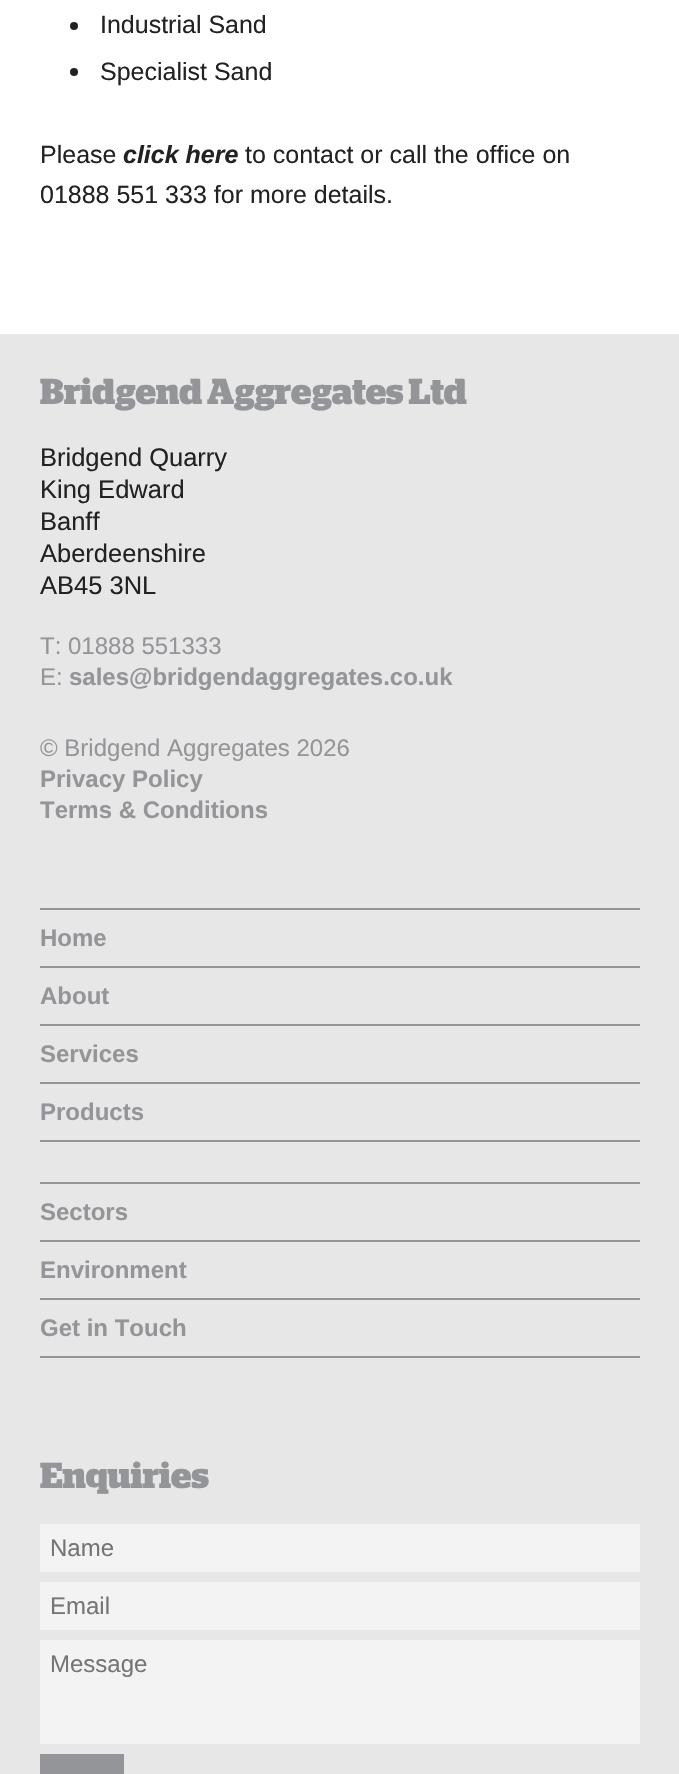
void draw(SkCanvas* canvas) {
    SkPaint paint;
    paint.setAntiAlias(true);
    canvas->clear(0xFFFFFFFF);
    paint.setColor(0xFF222222);
    canvas->drawCircle(74, 26, 4, paint);
    SkFont font1(fontMgr->matchFamilyStyle("Liberation Sans", SkFontStyle::Normal()), 25);
    font1.setSubpixel(true);
    canvas->drawString("Industrial Sand", 100, 33, font1, paint);
    canvas->drawCircle(74, 72, 4, paint);
    canvas->drawString("Specialist Sand", 100, 80, font1, paint);
    canvas->drawString("Please", 40, 163, font1, paint);
    SkFont font2(fontMgr->matchFamilyStyle("Liberation Sans", SkFontStyle::BoldItalic()), 25);
    font2.setSubpixel(true);
    canvas->drawString("click here", 123, 163, font2, paint);
    canvas->drawString("to contact or call the office on", 245, 163, font1, paint);
    canvas->drawString("01888 551 333 for more details.", 40, 203, font1, paint);
    paint.setColor(0xFFE7E7E8);
    canvas->drawRect(SkRect::MakeXYWH(0, 334, 679, 1440), paint);
    SkFont font3(fontMgr->matchFamilyStyle("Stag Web", SkFontStyle::Bold()), 36);
    font3.setSubpixel(true);
    paint.setColor(0xFF939598);
    canvas->drawString("Bridgend Aggregates Ltd", 40, 404, font3, paint);
    SkFont font4(fontMgr->matchFamilyStyle("Liberation Sans", SkFontStyle::Normal()), 25.5f);
    font4.setSubpixel(true);
    paint.setColor(0xFF222222);
    canvas->drawString("Bridgend Quarry", 40, 466, font4, paint);
    canvas->drawString("King Edward", 40, 498, font4, paint);
    canvas->drawString("Banff", 40, 530, font4, paint);
    canvas->drawString("Aberdeenshire", 40, 562, font4, paint);
    canvas->drawString("AB45 3NL", 40, 594, font4, paint);
    SkFont font5(fontMgr->matchFamilyStyle("Liberation Sans", SkFontStyle::Normal()), 24);
    font5.setSubpixel(true);
    paint.setColor(0xFF939598);
    canvas->drawString("T: 01888 551333", 40, 654, font5, paint);
    canvas->drawString("E:", 40, 685, font5, paint);
    SkFont font6(fontMgr->matchFamilyStyle("Liberation Sans", SkFontStyle::Bold()), 24);
    font6.setSubpixel(true);
    canvas->drawString("sales@bridgendaggregates.co.uk", 69, 685, font6, paint);
    canvas->drawString("© Bridgend Aggregates 2026", 40, 756, font5, paint);
    canvas->drawString("Privacy Policy", 40, 787, font6, paint);
    canvas->drawString("Terms & Conditions", 40, 818, font6, paint);
    canvas->drawRect(SkRect::MakeXYWH(40, 908, 600, 2), paint);
    canvas->drawRect(SkRect::MakeXYWH(40, 966, 600, 2), paint);
    canvas->drawString("Home", 40, 946, font6, paint);
    canvas->drawRect(SkRect::MakeXYWH(40, 1024, 600, 2), paint);
    canvas->drawString("About", 40, 1004, font6, paint);
    canvas->drawRect(SkRect::MakeXYWH(40, 1082, 600, 2), paint);
    canvas->drawString("Services", 40, 1062, font6, paint);
    canvas->drawRect(SkRect::MakeXYWH(40, 1140, 600, 2), paint);
    canvas->drawString("Products", 40, 1120, font6, paint);
    canvas->drawRect(SkRect::MakeXYWH(40, 1182, 600, 2), paint);
    canvas->drawRect(SkRect::MakeXYWH(40, 1240, 600, 2), paint);
    canvas->drawString("Sectors", 40, 1220, font6, paint);
    canvas->drawRect(SkRect::MakeXYWH(40, 1298, 600, 2), paint);
    canvas->drawString("Environment", 40, 1278, font6, paint);
    canvas->drawRect(SkRect::MakeXYWH(40, 1356, 600, 2), paint);
    canvas->drawString("Get in Touch", 40, 1336, font6, paint);
    canvas->drawString("Enquiries", 40, 1488, font3, paint);
    paint.setColor(0xFFF3F3F4);
    canvas->drawRect(SkRect::MakeXYWH(40, 1524, 600, 48), paint);
    paint.setColor(0xFF757575);
    canvas->drawString("Name", 50, 1556, font5, paint);
    paint.setColor(0xFFF3F3F4);
    canvas->drawRect(SkRect::MakeXYWH(40, 1582, 600, 48), paint);
    paint.setColor(0xFF757575);
    canvas->drawString("Email", 50, 1614, font5, paint);
    paint.setColor(0xFFF3F3F4);
    canvas->drawRect(SkRect::MakeXYWH(40, 1640, 600, 104), paint);
    paint.setColor(0xFF757575);
    canvas->drawString("Message", 50, 1672, font5, paint);
    paint.setColor(0xFF939598);
    canvas->drawRect(SkRect::MakeXYWH(40, 1754, 84, 20), paint);
}
